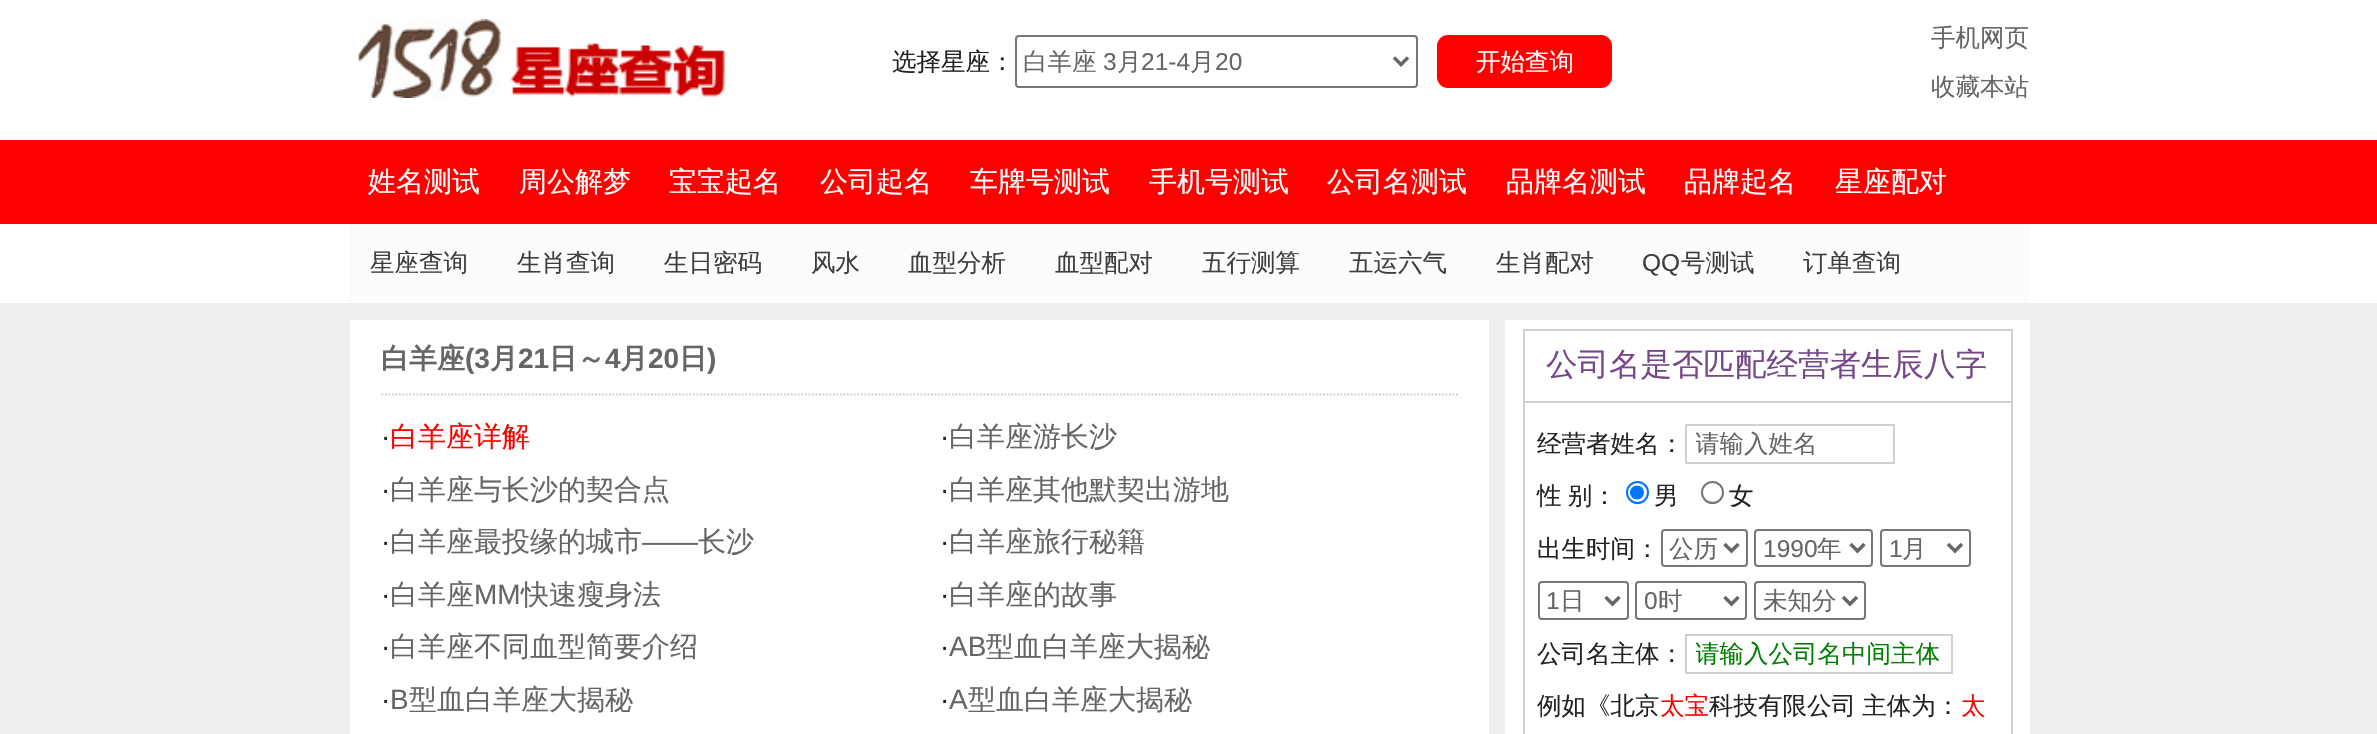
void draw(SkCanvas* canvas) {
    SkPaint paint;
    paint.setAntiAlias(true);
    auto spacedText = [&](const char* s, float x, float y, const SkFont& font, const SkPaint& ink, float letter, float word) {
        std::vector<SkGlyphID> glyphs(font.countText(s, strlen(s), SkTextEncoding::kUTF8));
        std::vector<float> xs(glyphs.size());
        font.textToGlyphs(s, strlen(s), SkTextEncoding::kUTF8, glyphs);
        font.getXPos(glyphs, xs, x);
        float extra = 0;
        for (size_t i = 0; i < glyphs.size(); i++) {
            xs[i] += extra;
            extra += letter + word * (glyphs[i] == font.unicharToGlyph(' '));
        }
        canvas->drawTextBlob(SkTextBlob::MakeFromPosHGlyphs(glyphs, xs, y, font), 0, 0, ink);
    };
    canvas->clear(0xFFEEEEEE);
    paint.setColor(0xFFFFFFFF);
    canvas->drawRect(SkRect::MakeXYWH(0, 0, 2377, 140), paint);
    canvas->drawImageRect(SkImages::DeferredFromEncodedData(SkData::MakeFromFileName("img1.png")), SkRect::MakeXYWH(358, 19, 367, 79), SkSamplingOptions());
    SkFont font1(fontMgr->matchFamilyStyle("WenQuanYi Zen Hei", SkFontStyle(500, SkFontStyle::kNormal_Width, SkFontStyle::kUpright_Slant)), 24.5f);
    font1.setSubpixel(true);
    paint.setColor(0xFF222222);
    canvas->drawString("选择星座：", 892, 70, font1, paint);
    paint.setStyle(SkPaint::kStroke_Style);
    paint.setStrokeWidth(2);
    paint.setColor(0xFF767676);
    canvas->drawRoundRect(SkRect::MakeXYWH(1016, 36, 401, 51), 3, 3, paint);
    paint.setStrokeWidth(3.5f);
    paint.setColor(0xFF666666);
    canvas->drawPath(SkPathBuilder().moveTo(1394, 57.5f).lineTo(1401, 64.5f).lineTo(1408, 57.5f).detach(), paint);
    paint.setStyle(SkPaint::kFill_Style);
    canvas->drawString("白羊座", 1023, 70, font1, paint);
    SkFont font2(fontMgr->matchFamilyStyle("Liberation Sans", SkFontStyle::Normal()), 24.5f);
    font2.setSubpixel(true);
    canvas->drawString("3", 1103, 70, font2, paint);
    canvas->drawString("月", 1117, 70, font1, paint);
    canvas->drawString("21-4", 1141, 70, font2, paint);
    canvas->drawString("月", 1190, 70, font1, paint);
    canvas->drawString("20", 1215, 70, font2, paint);
    paint.setColor(0xFFFF0000);
    canvas->drawRoundRect(SkRect::MakeXYWH(1437, 35, 175, 53), 11, 11, paint);
    paint.setColor(0xFFFFFFFF);
    canvas->drawString("开始查询", 1476, 70, font1, paint);
    paint.setColor(0xFF666666);
    canvas->drawString("手机网页", 1931, 46, font1, paint);
    canvas->drawString("收藏本站", 1931, 95, font1, paint);
    paint.setColor(0xFFFF0000);
    canvas->drawRect(SkRect::MakeXYWH(0, 140, 2377, 84), paint);
    SkFont font3(fontMgr->matchFamilyStyle("WenQuanYi Zen Hei", SkFontStyle(500, SkFontStyle::kNormal_Width, SkFontStyle::kUpright_Slant)), 28);
    font3.setSubpixel(true);
    paint.setColor(0xFFFFFFFF);
    canvas->drawString("姓名测试", 368, 191, font3, paint);
    canvas->drawString("周公解梦", 519, 191, font3, paint);
    canvas->drawString("宝宝起名", 669, 191, font3, paint);
    canvas->drawString("公司起名", 820, 191, font3, paint);
    canvas->drawString("车牌号测试", 970, 191, font3, paint);
    canvas->drawString("手机号测试", 1149, 191, font3, paint);
    canvas->drawString("公司名测试", 1327, 191, font3, paint);
    canvas->drawString("品牌名测试", 1506, 191, font3, paint);
    canvas->drawString("品牌起名", 1684, 191, font3, paint);
    canvas->drawString("星座配对", 1835, 191, font3, paint);
    canvas->drawRect(SkRect::MakeXYWH(0, 224, 2377, 79), paint);
    paint.setColor(0xFFFCFCFC);
    canvas->drawRect(SkRect::MakeXYWH(350, 224, 1680, 79), paint);
    paint.setColor(0xFF3E3E3E);
    canvas->drawString("星座查询", 370, 271, font1, paint);
    canvas->drawString("生肖查询", 517, 271, font1, paint);
    canvas->drawString("生日密码", 664, 271, font1, paint);
    canvas->drawString("风水", 811, 271, font1, paint);
    canvas->drawString("血型分析", 908, 271, font1, paint);
    canvas->drawString("血型配对", 1055, 271, font1, paint);
    canvas->drawString("五行测算", 1202, 271, font1, paint);
    canvas->drawString("五运六气", 1349, 271, font1, paint);
    canvas->drawString("生肖配对", 1496, 271, font1, paint);
    canvas->drawString("QQ", 1642, 271, font2, paint);
    canvas->drawString("号测试", 1681, 271, font1, paint);
    canvas->drawString("订单查询", 1803, 271, font1, paint);
    paint.setColor(0xFFFFFFFF);
    canvas->drawRect(SkRect::MakeXYWH(350, 320, 1139, 414), paint);
    SkFont font4(fontMgr->matchFamilyStyle("WenQuanYi Zen Hei", SkFontStyle::Bold()), 28);
    font4.setSubpixel(true);
    paint.setColor(0xFF666666);
    canvas->drawString("白羊座", 381, 368, font4, paint);
    SkFont font5(fontMgr->matchFamilyStyle("Liberation Sans", SkFontStyle::Bold()), 28);
    font5.setSubpixel(true);
    canvas->drawString("(3", 465, 368, font5, paint);
    canvas->drawString("月", 490, 368, font4, paint);
    canvas->drawString("21", 518, 368, font5, paint);
    canvas->drawString("日～", 549, 368, font4, paint);
    canvas->drawString("4", 605, 368, font5, paint);
    canvas->drawString("月", 620, 368, font4, paint);
    canvas->drawString("20", 648, 368, font5, paint);
    canvas->drawString("日", 679, 368, font4, paint);
    canvas->drawString(")", 707, 368, font5, paint);
    paint.setStyle(SkPaint::kStroke_Style);
    paint.setStrokeWidth(1.8f);
    paint.setColor(0xFFCCCCCC);
    paint.setPathEffect(SkDashPathEffect::Make({{1.75f, 1.75f}}, 0));
    canvas->drawPath(SkPathBuilder().moveTo(381.5f, 394.5f).lineTo(1458, 394.5f).detach(), paint);
    paint.setPathEffect(nullptr);
    SkFont font6(fontMgr->matchFamilyStyle("Liberation Sans", SkFontStyle::Normal()), 28);
    font6.setSubpixel(true);
    paint.setStyle(SkPaint::kFill_Style);
    paint.setColor(0xFF222222);
    canvas->drawString("·", 381, 446, font6, paint);
    paint.setColor(0xFFFF0000);
    canvas->drawString("白羊座详解", 390, 446, font3, paint);
    paint.setColor(0xFF222222);
    canvas->drawString("·", 940, 446, font6, paint);
    paint.setColor(0xFF666666);
    canvas->drawString("白羊座游长沙", 949, 446, font3, paint);
    paint.setColor(0xFF222222);
    canvas->drawString("·", 381, 499, font6, paint);
    paint.setColor(0xFF666666);
    canvas->drawString("白羊座与长沙的契合点", 390, 499, font3, paint);
    paint.setColor(0xFF222222);
    canvas->drawString("·", 940, 499, font6, paint);
    paint.setColor(0xFF666666);
    canvas->drawString("白羊座其他默契出游地", 949, 499, font3, paint);
    paint.setColor(0xFF222222);
    canvas->drawString("·", 381, 551, font6, paint);
    paint.setColor(0xFF666666);
    canvas->drawString("白羊座最投缘的城市", 390, 551, font3, paint);
    canvas->drawString("——", 642, 551, font6, paint);
    canvas->drawString("长沙", 698, 551, font3, paint);
    paint.setColor(0xFF222222);
    canvas->drawString("·", 940, 551, font6, paint);
    paint.setColor(0xFF666666);
    canvas->drawString("白羊座旅行秘籍", 949, 551, font3, paint);
    paint.setColor(0xFF222222);
    canvas->drawString("·", 381, 604, font6, paint);
    paint.setColor(0xFF666666);
    canvas->drawString("白羊座", 390, 604, font3, paint);
    canvas->drawString("MM", 474, 604, font6, paint);
    canvas->drawString("快速瘦身法", 521, 604, font3, paint);
    paint.setColor(0xFF222222);
    canvas->drawString("·", 940, 604, font6, paint);
    paint.setColor(0xFF666666);
    canvas->drawString("白羊座的故事", 949, 604, font3, paint);
    paint.setColor(0xFF222222);
    canvas->drawString("·", 381, 656, font6, paint);
    paint.setColor(0xFF666666);
    canvas->drawString("白羊座不同血型简要介绍", 390, 656, font3, paint);
    paint.setColor(0xFF222222);
    canvas->drawString("·", 940, 656, font6, paint);
    paint.setColor(0xFF666666);
    canvas->drawString("AB", 949, 656, font6, paint);
    canvas->drawString("型血白羊座大揭秘", 986, 656, font3, paint);
    paint.setColor(0xFF222222);
    canvas->drawString("·", 381, 709, font6, paint);
    paint.setColor(0xFF666666);
    canvas->drawString("B", 390, 709, font6, paint);
    canvas->drawString("型血白羊座大揭秘", 409, 709, font3, paint);
    paint.setColor(0xFF222222);
    canvas->drawString("·", 940, 709, font6, paint);
    paint.setColor(0xFF666666);
    canvas->drawString("A", 949, 709, font6, paint);
    canvas->drawString("型血白羊座大揭秘", 968, 709, font3, paint);
    paint.setColor(0xFFFFFFFF);
    canvas->drawRect(SkRect::MakeXYWH(1505, 320, 525, 414), paint);
    paint.setColor(0xFFD1D1D1);
    canvas->drawRect(SkRect::MakeXYWH(1523, 329, 490, 2), paint);
    canvas->drawRect(SkRect::MakeXYWH(2011, 329, 2, 405), paint);
    canvas->drawRect(SkRect::MakeXYWH(1523, 329, 2, 405), paint);
    SkFont font7(fontMgr->matchFamilyStyle("WenQuanYi Zen Hei", SkFontStyle(500, SkFontStyle::kNormal_Width, SkFontStyle::kUpright_Slant)), 31.5f);
    font7.setSubpixel(true);
    paint.setColor(0xFF774889);
    canvas->drawString("公司名是否匹配经营者生辰八字", 1546, 375, font7, paint);
    paint.setColor(0xFFD1D1D1);
    canvas->drawRect(SkRect::MakeXYWH(1523, 401, 490, 2), paint);
    paint.setColor(0xFF222222);
    canvas->drawString("经营者姓名：", 1537, 452, font1, paint);
    paint.setStyle(SkPaint::kStroke_Style);
    paint.setStrokeWidth(2);
    paint.setColor(0xFFD1D1D1);
    canvas->drawRect(SkRect::MakeXYWH(1686, 425, 208, 38), paint);
    canvas->save();
    canvas->clipRect(SkRect::MakeXYWH(1696, 425, 194, 37));
    paint.setStyle(SkPaint::kFill_Style);
    paint.setColor(0xFF666666);
    canvas->drawString("请输入姓名", 1695, 452, font1, paint);
    canvas->restore();
    paint.setColor(0xFF222222);
    spacedText("性 别：", 1537, 504, font1, paint, 0, -1);
    paint.setStyle(SkPaint::kStroke_Style);
    paint.setColor(0xFF0075FF);
    canvas->drawCircle(1637.5f, 492.5f, 10.5f, paint);
    paint.setStyle(SkPaint::kFill_Style);
    canvas->drawCircle(1637, 492.5f, 7, paint);
    paint.setColor(0xFF222222);
    canvas->drawString("男", 1654, 504, font1, paint);
    paint.setStyle(SkPaint::kStroke_Style);
    paint.setColor(0xFF767676);
    canvas->drawCircle(1712.5f, 492.5f, 10.5f, paint);
    paint.setStyle(SkPaint::kFill_Style);
    paint.setColor(0xFF222222);
    canvas->drawString("女", 1729, 504, font1, paint);
    canvas->drawString("出生时间：", 1537, 557, font1, paint);
    paint.setStyle(SkPaint::kStroke_Style);
    paint.setColor(0xFF767676);
    canvas->drawRoundRect(SkRect::MakeXYWH(1662, 530, 85, 36), 3, 3, paint);
    paint.setStrokeWidth(3.5f);
    paint.setColor(0xFF666666);
    canvas->drawPath(SkPathBuilder().moveTo(1724.5f, 544).lineTo(1731.5f, 551).lineTo(1738.5f, 544).detach(), paint);
    paint.setStyle(SkPaint::kFill_Style);
    canvas->drawString("公历", 1669, 557, font1, paint);
    paint.setStyle(SkPaint::kStroke_Style);
    paint.setStrokeWidth(2);
    paint.setColor(0xFF767676);
    canvas->drawRoundRect(SkRect::MakeXYWH(1755, 530, 117, 36), 3, 3, paint);
    paint.setStrokeWidth(3.5f);
    paint.setColor(0xFF666666);
    canvas->drawPath(SkPathBuilder().moveTo(1850.5f, 544).lineTo(1857.5f, 551).lineTo(1864.5f, 544).detach(), paint);
    paint.setStyle(SkPaint::kFill_Style);
    canvas->drawString("1990", 1763, 557, font2, paint);
    canvas->drawString("年", 1817, 557, font1, paint);
    paint.setStyle(SkPaint::kStroke_Style);
    paint.setStrokeWidth(2);
    paint.setColor(0xFF767676);
    canvas->drawRoundRect(SkRect::MakeXYWH(1881, 530, 89, 36), 3, 3, paint);
    paint.setStrokeWidth(3.5f);
    paint.setColor(0xFF666666);
    canvas->drawPath(SkPathBuilder().moveTo(1948, 544).lineTo(1955, 551).lineTo(1962, 544).detach(), paint);
    paint.setStyle(SkPaint::kFill_Style);
    canvas->drawString("1", 1889, 557, font2, paint);
    canvas->drawString("月", 1902, 557, font1, paint);
    paint.setStyle(SkPaint::kStroke_Style);
    paint.setStrokeWidth(2);
    paint.setColor(0xFF767676);
    canvas->drawRoundRect(SkRect::MakeXYWH(1539, 582, 89, 37), 3, 3, paint);
    paint.setStrokeWidth(3.5f);
    paint.setColor(0xFF666666);
    canvas->drawPath(SkPathBuilder().moveTo(1605.5f, 597).lineTo(1612.5f, 604).lineTo(1619.5f, 597).detach(), paint);
    paint.setStyle(SkPaint::kFill_Style);
    canvas->drawString("1", 1546, 609, font2, paint);
    canvas->drawString("日", 1560, 609, font1, paint);
    paint.setStyle(SkPaint::kStroke_Style);
    paint.setStrokeWidth(2);
    paint.setColor(0xFF767676);
    canvas->drawRoundRect(SkRect::MakeXYWH(1636, 582, 110, 37), 3, 3, paint);
    paint.setStrokeWidth(3.5f);
    paint.setColor(0xFF666666);
    canvas->drawPath(SkPathBuilder().moveTo(1724.5f, 597).lineTo(1731.5f, 604).lineTo(1738.5f, 597).detach(), paint);
    paint.setStyle(SkPaint::kFill_Style);
    canvas->drawString("0", 1644, 609, font2, paint);
    canvas->drawString("时", 1658, 609, font1, paint);
    paint.setStyle(SkPaint::kStroke_Style);
    paint.setStrokeWidth(2);
    paint.setColor(0xFF767676);
    canvas->drawRoundRect(SkRect::MakeXYWH(1755, 582, 110, 37), 3, 3, paint);
    paint.setStrokeWidth(3.5f);
    paint.setColor(0xFF666666);
    canvas->drawPath(SkPathBuilder().moveTo(1843, 597).lineTo(1850, 604).lineTo(1857, 597).detach(), paint);
    paint.setStyle(SkPaint::kFill_Style);
    canvas->drawString("未知分", 1763, 609, font1, paint);
    paint.setColor(0xFF222222);
    canvas->drawString("公司名主体：", 1537, 662, font1, paint);
    paint.setStyle(SkPaint::kStroke_Style);
    paint.setStrokeWidth(2);
    paint.setColor(0xFFD1D1D1);
    canvas->drawRect(SkRect::MakeXYWH(1686, 635, 266, 38), paint);
    canvas->save();
    canvas->clipRect(SkRect::MakeXYWH(1696, 635, 252, 37));
    paint.setStyle(SkPaint::kFill_Style);
    paint.setColor(0xFF008000);
    canvas->drawString("请输入公司名中间主体", 1695, 662, font1, paint);
    canvas->restore();
    paint.setColor(0xFF222222);
    canvas->drawString("例如《北京", 1537, 714, font1, paint);
    paint.setColor(0xFFFF0000);
    canvas->drawString("太宝", 1660, 714, font1, paint);
    paint.setColor(0xFF222222);
    spacedText("科技有限公司 主体为：", 1709, 714, font1, paint, 0, -1);
    paint.setColor(0xFFFF0000);
    canvas->drawString("太", 1961, 714, font1, paint);
}
